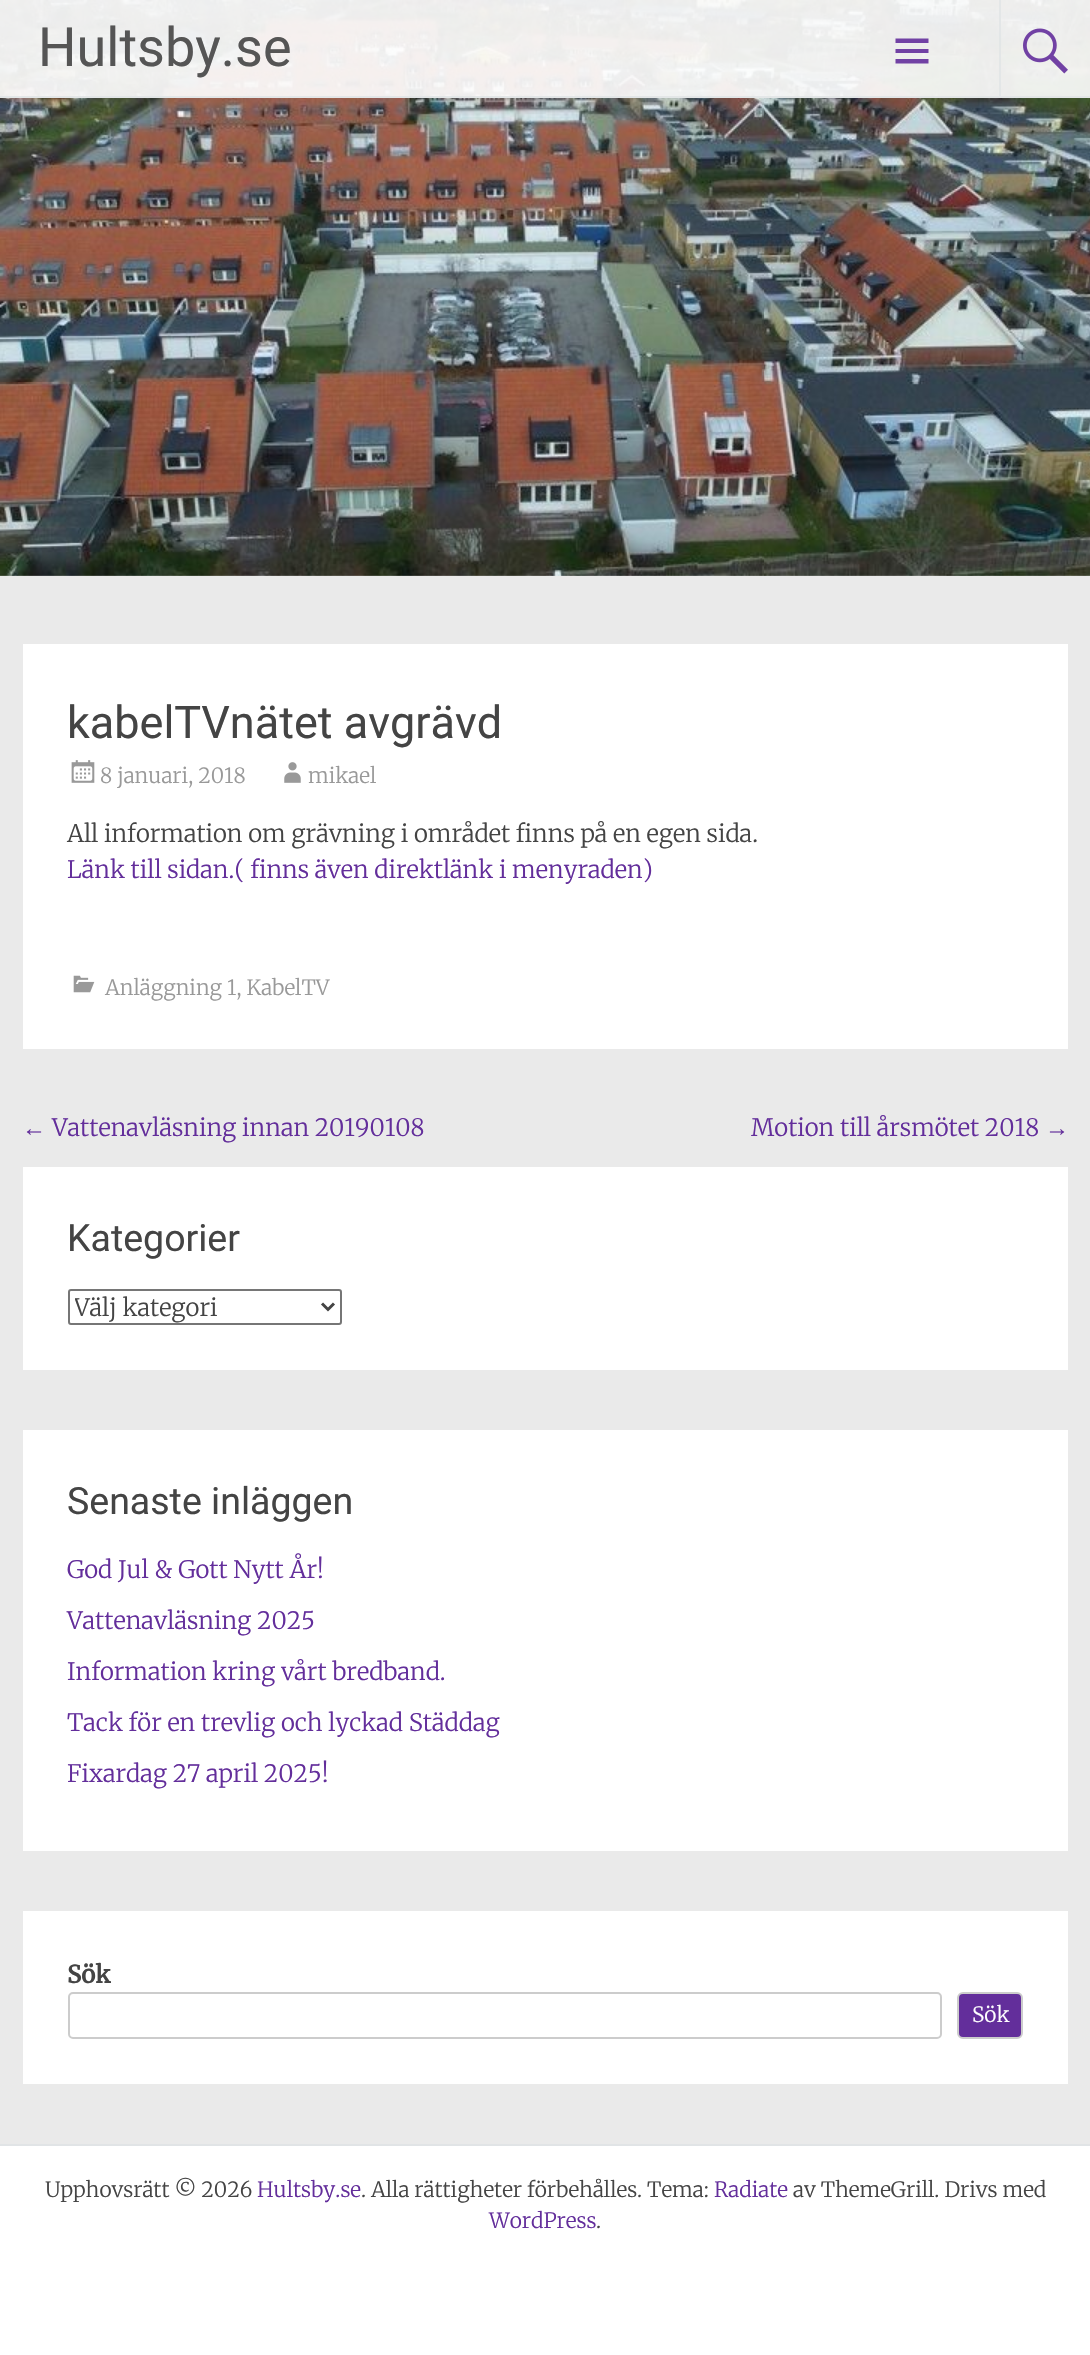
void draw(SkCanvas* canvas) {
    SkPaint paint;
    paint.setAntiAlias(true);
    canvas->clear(0xFFFFFFFF);
    canvas->drawImageRect(SkImages::DeferredFromEncodedData(SkData::MakeFromFileName("img1.png")), SkRect::MakeXYWH(0, 0, 1090, 576), SkSamplingOptions());
    paint.setColor(0xE6FFFFFF);
    canvas->drawRect(SkRect::MakeXYWH(0, 0, 1090, 98), paint);
    paint.setColor(0xE6E1E4E6);
    canvas->drawRect(SkRect::MakeXYWH(0, 96, 1090, 2), paint);
    SkFont font1(fontMgr->matchFamilyStyle("Roboto", SkFontStyle::Normal()), 54);
    font1.setSubpixel(true);
    paint.setColor(0xFF555555);
    canvas->drawString("Hultsby.se", 38, 66, font1, paint);
    paint.setColor(0xE6632E9B);
    canvas->drawPath(SkPathBuilder().moveTo(895.5f, 63.5f).lineTo(895.5f, 59).lineTo(928.5f, 59).lineTo(928.5f, 63.5f).close().moveTo(895.5f, 38.5f).lineTo(928.5f, 38.5f).lineTo(928.5f, 43).lineTo(895.5f, 43).close().moveTo(895.5f, 53).lineTo(895.5f, 49).lineTo(928.5f, 49).lineTo(928.5f, 53).close().detach(), paint);
    paint.setColor(0xE6E1E4E6);
    canvas->drawRect(SkRect::MakeXYWH(999, 0, 2, 96), paint);
    canvas->drawImageRect(SkImages::DeferredFromEncodedData(SkData::MakeFromFileName("img2.png")), SkRect::MakeXYWH(1023, 28, 45, 46), SkSamplingOptions());
    paint.setColor(0xFFEAEAEA);
    canvas->drawRect(SkRect::MakeXYWH(0, 576, 1090, 1568), paint);
    paint.setColor(0xFFFFFFFF);
    canvas->drawRect(SkRect::MakeXYWH(23, 644, 1045, 405), paint);
    SkFont font2(fontMgr->matchFamilyStyle("Roboto", SkFontStyle::Normal()), 45);
    font2.setSubpixel(true);
    paint.setColor(0xFF444444);
    canvas->drawString("kabelTVnätet avgrävd", 67, 738, font2, paint);
    canvas->drawImageRect(SkImages::DeferredFromEncodedData(SkData::MakeFromFileName("img3.png")), SkRect::MakeXYWH(71, 760, 24, 23), SkSamplingOptions());
    SkFont font3(fontMgr->matchFamilyStyle("Merriweather", SkFontStyle(300, SkFontStyle::kNormal_Width, SkFontStyle::kUpright_Slant)), 21);
    font3.setSubpixel(true);
    paint.setColor(0xFF999999);
    canvas->drawString("8 januari, 2018", 100, 783, font3, paint);
    canvas->drawImageRect(SkImages::DeferredFromEncodedData(SkData::MakeFromFileName("img4.png")), SkRect::MakeXYWH(284, 762, 17, 21), SkSamplingOptions());
    canvas->drawString("mikael", 308, 783, font3, paint);
    SkFont font4(fontMgr->matchFamilyStyle("Merriweather", SkFontStyle(300, SkFontStyle::kNormal_Width, SkFontStyle::kUpright_Slant)), 24);
    font4.setSubpixel(true);
    paint.setColor(0xFF444444);
    canvas->drawString("All information om grävning i området finns på en egen sida.", 67, 842, font4, paint);
    paint.setColor(0xFF632E9B);
    canvas->drawString("Länk till sidan.( finns även direktlänk i menyraden)", 67, 878, font4, paint);
    canvas->drawImageRect(SkImages::DeferredFromEncodedData(SkData::MakeFromFileName("img5.png")), SkRect::MakeXYWH(73, 975, 22, 18), SkSamplingOptions());
    paint.setColor(0xFF999999);
    canvas->drawString("Anläggning 1, KabelTV", 105, 995, font3, paint);
    SkFont font5(fontMgr->matchFamilyStyle("Liberation Serif", SkFontStyle::Normal()), 24);
    font5.setSubpixel(true);
    paint.setColor(0xFF632E9B);
    canvas->drawString("←", 22, 1136, font5, paint);
    canvas->drawString("Vattenavläsning innan 20190108", 52, 1136, font4, paint);
    canvas->drawString("Motion till årsmötet 2018", 751, 1136, font4, paint);
    canvas->drawString("→", 1045, 1136, font5, paint);
    paint.setColor(0xFFFFFFFF);
    canvas->drawRect(SkRect::MakeXYWH(23, 1167, 1045, 203), paint);
    SkFont font6(fontMgr->matchFamilyStyle("Roboto", SkFontStyle::Normal()), 37.5f);
    font6.setSubpixel(true);
    paint.setColor(0xFF444444);
    canvas->drawString("Kategorier", 67, 1251, font6, paint);
    paint.setStyle(SkPaint::kStroke_Style);
    paint.setStrokeWidth(2);
    paint.setColor(0xFF767676);
    canvas->drawRoundRect(SkRect::MakeXYWH(69, 1290, 272, 34), 2, 2, paint);
    paint.setStrokeWidth(3);
    paint.setColor(0xFF444444);
    canvas->drawPath(SkPathBuilder().moveTo(322, 1303.5f).lineTo(328, 1309.5f).lineTo(334, 1303.5f).detach(), paint);
    canvas->save();
    canvas->clipRect(SkRect::MakeXYWH(75, 1290, 242, 33));
    paint.setStyle(SkPaint::kFill_Style);
    canvas->drawString("Välj kategori", 74, 1316, font4, paint);
    canvas->restore();
    paint.setColor(0xFFFFFFFF);
    canvas->drawRect(SkRect::MakeXYWH(23, 1430, 1045, 421), paint);
    paint.setColor(0xFF444444);
    canvas->drawString("Senaste inläggen", 67, 1514, font6, paint);
    paint.setColor(0xFF632E9B);
    canvas->drawString("God Jul & Gott Nytt År!", 67, 1578, font4, paint);
    canvas->drawString("Vattenavläsning 2025", 67, 1629, font4, paint);
    canvas->drawString("Information kring vårt bredband.", 67, 1680, font4, paint);
    canvas->drawString("Tack för en trevlig och lyckad Städdag", 67, 1731, font4, paint);
    canvas->drawString("Fixardag 27 april 2025!", 67, 1782, font4, paint);
    paint.setColor(0xFFFFFFFF);
    canvas->drawRect(SkRect::MakeXYWH(23, 1911, 1045, 173), paint);
    SkFont font7(fontMgr->matchFamilyStyle("Merriweather", SkFontStyle::Bold()), 24);
    font7.setSubpixel(true);
    paint.setColor(0xFF444444);
    canvas->drawString("Sök", 67, 1983, font7, paint);
    paint.setStyle(SkPaint::kStroke_Style);
    paint.setStrokeWidth(2);
    paint.setColor(0xFFCCCCCC);
    canvas->drawRoundRect(SkRect::MakeXYWH(69, 1993, 872, 45), 4, 4, paint);
    paint.setStyle(SkPaint::kFill_Style);
    paint.setColor(0xFF632E9B);
    canvas->drawRoundRect(SkRect::MakeXYWH(958, 1993, 64, 45), 5, 5, paint);
    paint.setStyle(SkPaint::kStroke_Style);
    paint.setColor(0xFFCCCCCC);
    canvas->drawRoundRect(SkRect::MakeXYWH(958, 1993, 64, 45), 5, 5, paint);
    paint.setStyle(SkPaint::kFill_Style);
    paint.setColor(0xFFFFFFFF);
    canvas->drawString("Sök", 972, 2022, font3, paint);
    paint.setColor(0xFFE1E4E6);
    canvas->drawRect(SkRect::MakeXYWH(0, 2144, 1090, 2), paint);
    paint.setColor(0xFF444444);
    canvas->drawString("Upphovsrätt © 2026", 45, 2197, font3, paint);
    paint.setColor(0xFF632E9B);
    canvas->drawString("Hultsby.se", 257, 2197, font3, paint);
    paint.setColor(0xFF444444);
    canvas->drawString(". Alla rättigheter förbehålles. Tema:", 361, 2197, font3, paint);
    paint.setColor(0xFF632E9B);
    canvas->drawString("Radiate", 714, 2197, font3, paint);
    paint.setColor(0xFF444444);
    canvas->drawString("av ThemeGrill. Drivs med", 793, 2197, font3, paint);
    paint.setColor(0xFF632E9B);
    canvas->drawString("WordPress", 489, 2228, font3, paint);
    paint.setColor(0xFF444444);
    canvas->drawString(".", 596, 2228, font3, paint);
}
